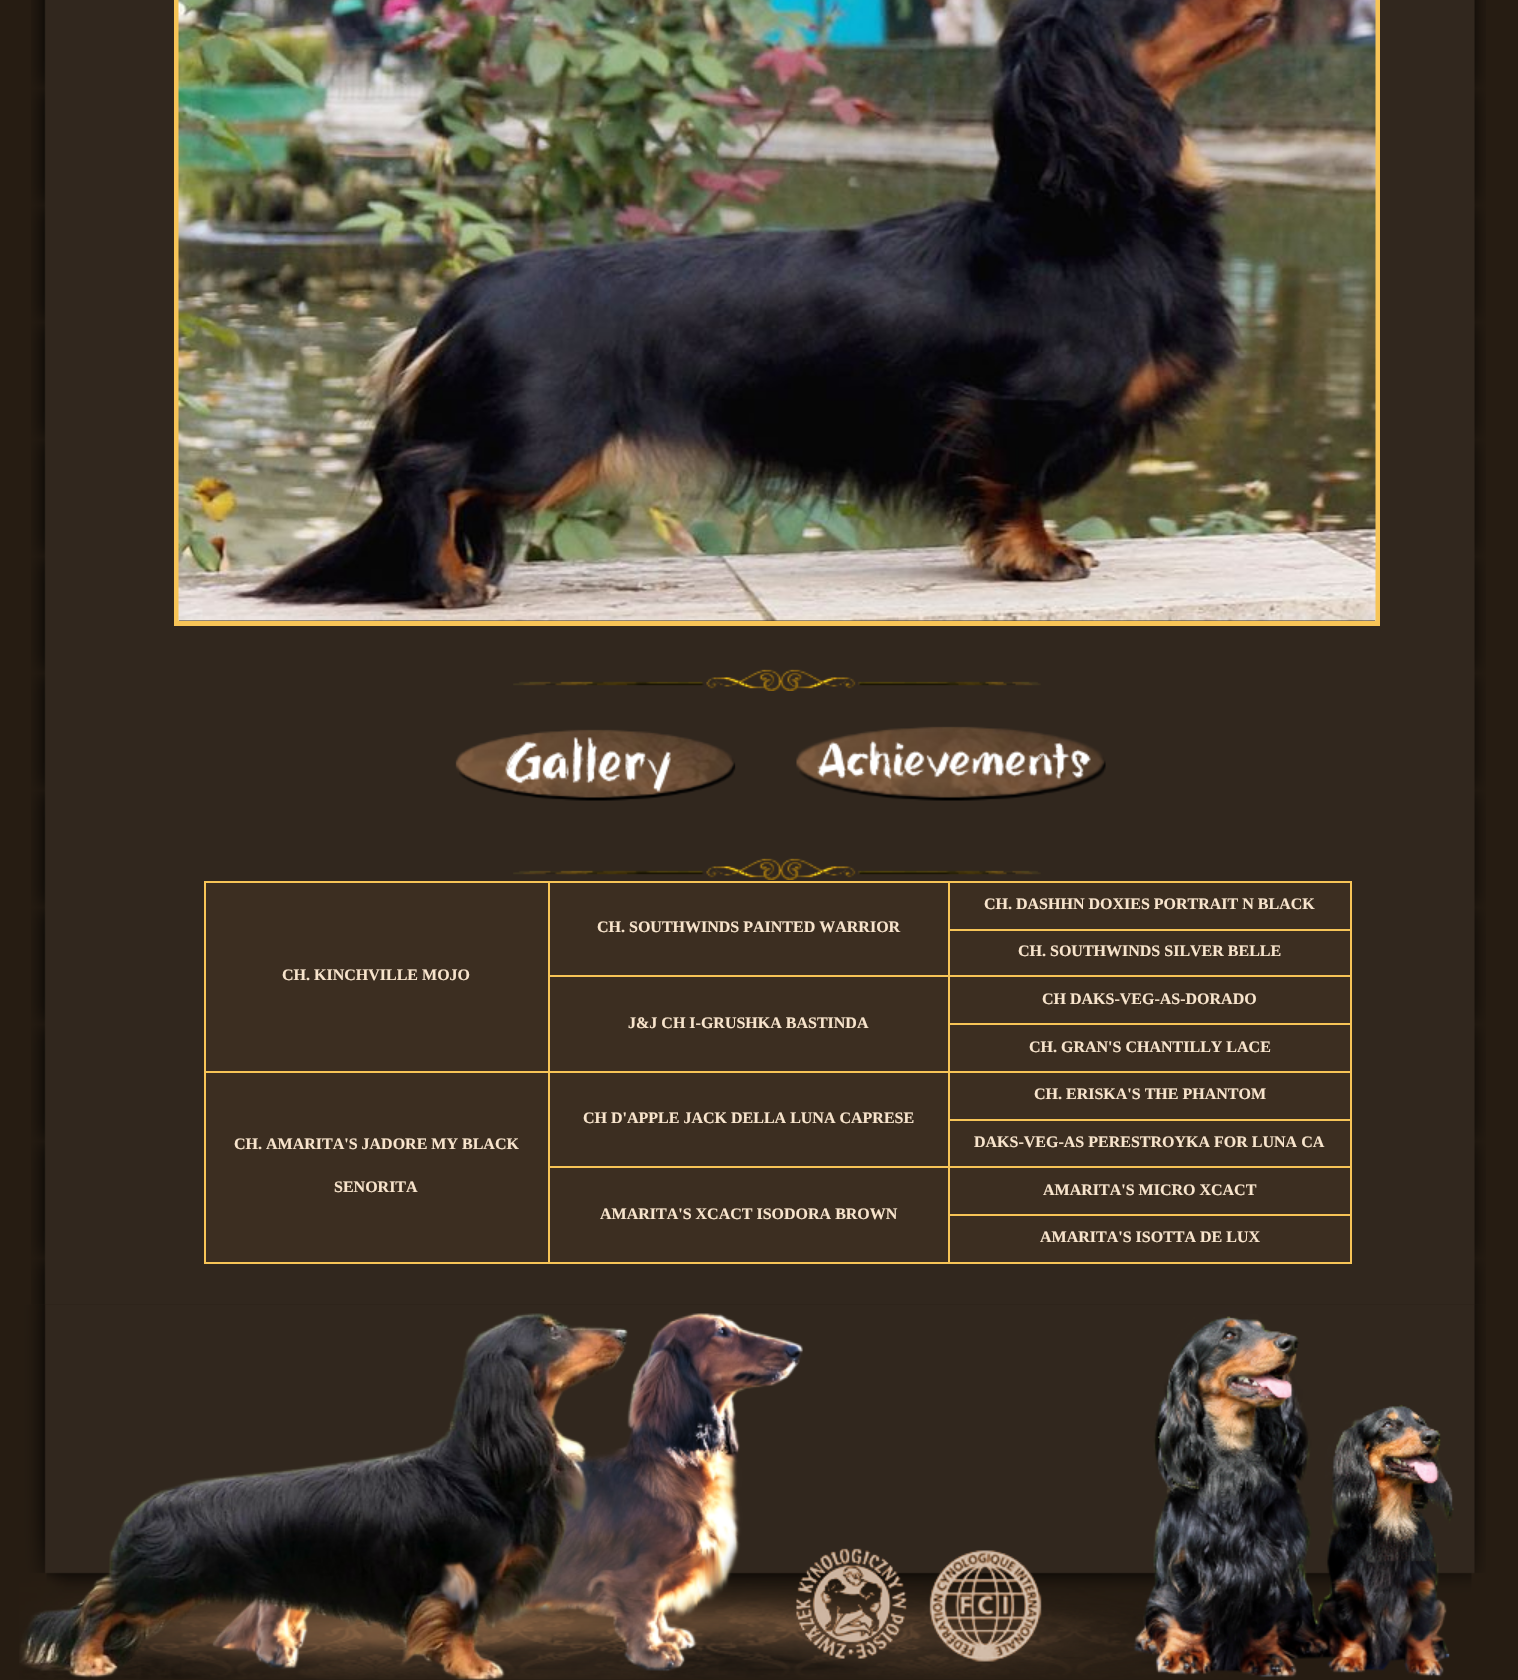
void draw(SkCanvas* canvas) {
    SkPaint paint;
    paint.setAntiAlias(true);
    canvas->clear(0xFF261C12);
    canvas->drawImageRect(SkImages::DeferredFromEncodedData(SkData::MakeFromFileName("img1.png")), SkRect::MakeXYWH(31, 0, 1455, 1305), SkSamplingOptions());
    paint.setStyle(SkPaint::kStroke_Style);
    paint.setStrokeWidth(5);
    paint.setColor(0xFFF7C457);
    canvas->drawRect(SkRect::MakeXYWH(176.5f, -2.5f, 1201, 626), paint);
    canvas->drawImageRect(SkImages::DeferredFromEncodedData(SkData::MakeFromFileName("img2.png")), SkRect::MakeXYWH(178, 0, 1198, 621), SkSamplingOptions());
    canvas->drawImageRect(SkImages::DeferredFromEncodedData(SkData::MakeFromFileName("img3.png")), SkRect::MakeXYWH(513, 669, 528, 22), SkSamplingOptions());
    canvas->drawImageRect(SkImages::DeferredFromEncodedData(SkData::MakeFromFileName("img4.png")), SkRect::MakeXYWH(455, 729, 281, 72), SkSamplingOptions());
    canvas->drawImageRect(SkImages::DeferredFromEncodedData(SkData::MakeFromFileName("img5.png")), SkRect::MakeXYWH(796, 726, 310, 75), SkSamplingOptions());
    canvas->drawImageRect(SkImages::DeferredFromEncodedData(SkData::MakeFromFileName("img3.png")), SkRect::MakeXYWH(513, 858, 528, 22), SkSamplingOptions());
    paint.setStyle(SkPaint::kFill_Style);
    paint.setColor(0xFF3C2E21);
    canvas->drawRect(SkRect::MakeXYWH(206, 883, 1144, 379), paint);
    paint.setColor(0xFFF7C457);
    canvas->drawRect(SkRect::MakeXYWH(204, 881, 1148, 2), paint);
    canvas->drawRect(SkRect::MakeXYWH(1350, 881, 2, 382), paint);
    canvas->drawRect(SkRect::MakeXYWH(204, 1262, 1148, 2), paint);
    canvas->drawRect(SkRect::MakeXYWH(204, 881, 2, 382), paint);
    SkFont font1(fontMgr->matchFamilyStyle("Liberation Serif", SkFontStyle::Bold()), 16);
    font1.setSubpixel(true);
    paint.setColor(0xFFF8E4CC);
    canvas->drawString("CH. DASHHN DOXIES PORTRAIT N BLACK", 984, 909, font1, paint);
    canvas->drawString("CH. SOUTHWINDS PAINTED WARRIOR", 597, 932, font1, paint);
    canvas->drawString("CH. KINCHVILLE MOJO", 282, 980, font1, paint);
    paint.setColor(0xFFF7C457);
    canvas->drawRect(SkRect::MakeXYWH(948, 929, 404, 2), paint);
    canvas->drawRect(SkRect::MakeXYWH(948, 975, 404, 2), paint);
    canvas->drawRect(SkRect::MakeXYWH(948, 1023, 404, 2), paint);
    canvas->drawRect(SkRect::MakeXYWH(948, 1071, 404, 2), paint);
    canvas->drawRect(SkRect::MakeXYWH(948, 1119, 404, 2), paint);
    canvas->drawRect(SkRect::MakeXYWH(948, 1166, 404, 2), paint);
    canvas->drawRect(SkRect::MakeXYWH(948, 1214, 404, 2), paint);
    canvas->drawRect(SkRect::MakeXYWH(948, 1214, 2, 49), paint);
    canvas->drawRect(SkRect::MakeXYWH(948, 1166, 2, 49), paint);
    canvas->drawRect(SkRect::MakeXYWH(548, 1166, 402, 2), paint);
    canvas->drawRect(SkRect::MakeXYWH(948, 1119, 2, 48), paint);
    canvas->drawRect(SkRect::MakeXYWH(948, 1071, 2, 50), paint);
    canvas->drawRect(SkRect::MakeXYWH(548, 1071, 402, 2), paint);
    canvas->drawRect(SkRect::MakeXYWH(948, 1023, 2, 50), paint);
    canvas->drawRect(SkRect::MakeXYWH(948, 975, 2, 50), paint);
    canvas->drawRect(SkRect::MakeXYWH(548, 975, 402, 2), paint);
    canvas->drawRect(SkRect::MakeXYWH(948, 881, 2, 96), paint);
    paint.setColor(0xFFF8E4CC);
    canvas->drawString("CH. SOUTHWINDS SILVER BELLE", 1018, 956, font1, paint);
    canvas->drawString("CH DAKS-VEG-AS-DORADO", 1042, 1004, font1, paint);
    paint.setColor(0xFFF7C457);
    canvas->drawRect(SkRect::MakeXYWH(548, 1166, 2, 97), paint);
    canvas->drawRect(SkRect::MakeXYWH(548, 1071, 2, 96), paint);
    canvas->drawRect(SkRect::MakeXYWH(204, 1071, 345, 2), paint);
    canvas->drawRect(SkRect::MakeXYWH(548, 881, 2, 192), paint);
    paint.setColor(0xFFF8E4CC);
    canvas->drawString("J&J CH I-GRUSHKA BASTINDA", 628, 1028, font1, paint);
    canvas->drawString("CH. GRAN'S CHANTILLY LACE", 1029, 1052, font1, paint);
    canvas->drawString("CH. ERISKA'S THE PHANTOM", 1034, 1099, font1, paint);
    canvas->drawString("CH D'APPLE JACK DELLA LUNA CAPRESE", 583, 1123, font1, paint);
    canvas->drawString("CH. AMARITA'S JADORE MY BLACK", 234, 1149, font1, paint);
    canvas->drawString("SENORITA", 334, 1192, font1, paint);
    canvas->drawString("DAKS-VEG-AS PERESTROYKA FOR LUNA CA", 974, 1147, font1, paint);
    canvas->drawString("AMARITA'S MICRO XCACT", 1043, 1195, font1, paint);
    canvas->drawString("AMARITA'S XCACT ISODORA BROWN", 600, 1219, font1, paint);
    canvas->drawString("AMARITA'S ISOTTA DE LUX", 1040, 1242, font1, paint);
    canvas->drawImageRect(SkImages::DeferredFromEncodedData(SkData::MakeFromFileName("img6.png")), SkRect::MakeXYWH(19, 1304, 1467, 376), SkSamplingOptions());
}
